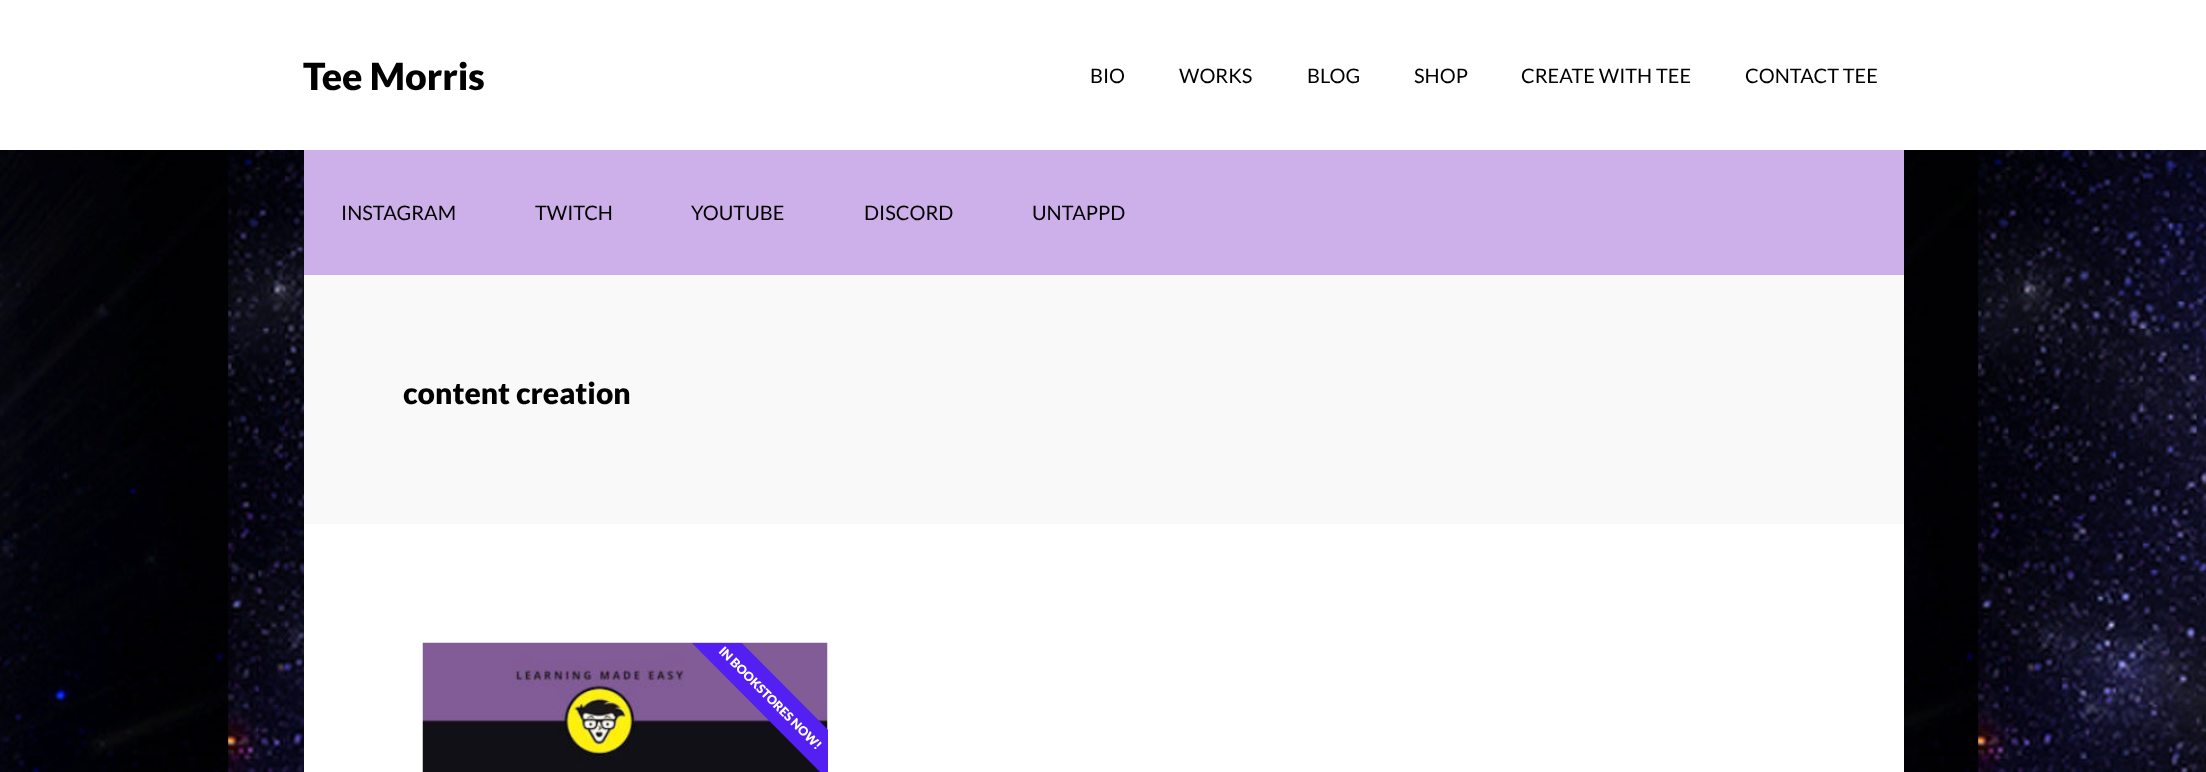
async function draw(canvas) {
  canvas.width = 2206
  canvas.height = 772
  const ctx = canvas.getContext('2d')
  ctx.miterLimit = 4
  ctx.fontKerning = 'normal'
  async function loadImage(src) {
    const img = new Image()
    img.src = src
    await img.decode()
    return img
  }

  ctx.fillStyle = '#fff'
  ctx.fillRect(0, 0, 2206, 772)
  ctx.drawImage(await loadImage('image0.png'), 0, 150, 2206, 622)
  ctx.font = '900 37.5px Lato'
  ctx.fillStyle = '#000'
  ctx.fillText('Tee Morris', 303, 90)
  ctx.font = '20px Lato'
  ctx.fillText('BIO', 1090, 83)
  ctx.fillText('WORKS', 1179, 83)
  ctx.fillText('BLOG', 1307, 83)
  ctx.fillText('SHOP', 1414, 83)
  ctx.fillText('CREATE WITH TEE', 1521, 83)
  ctx.fillText('CONTACT TEE', 1745, 83)
  ctx.fillStyle = '#fff'
  ctx.fillRect(304, 524, 1600, 248)
  ctx.fillStyle = '#cdafea'
  ctx.fillRect(304, 150, 1600, 125)
  ctx.fillStyle = '#000'
  ctx.fillText('INSTAGRAM', 341, 220)
  ctx.fillText('TWITCH', 535, 220)
  ctx.fillText('YOUTUBE', 691, 220)
  ctx.fillText('DISCORD', 864, 220)
  ctx.fillText('UNTAPPD', 1032, 220)
  ctx.fillStyle = '#f9f9f9'
  ctx.fillRect(304, 275, 1600, 249)
  ctx.font = '900 30px Lato'
  ctx.fillStyle = '#000'
  ctx.fillText('content creation', 403, 404)
  ctx.drawImage(await loadImage('image1.png'), 422, 642, 406, 130)
  ctx.save()
  ctx.beginPath()
  ctx.rect(423, 643, 405, 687)
  ctx.clip()
  ctx.fillStyle = '#541ff2'
  ctx.beginPath()
  ctx.moveTo(713, 614)
  ctx.lineTo(854, 756)
  ctx.lineTo(829, 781)
  ctx.lineTo(688, 639)
  ctx.closePath()
  ctx.fill()
  ctx.restore()
  ctx.font = '900 12.5px Lato'
  ctx.fillStyle = '#fff'
  ctx.save()
  ctx.translate(718, 652)
  ctx.rotate(45 * Math.PI / 180)
  ctx.fillText('IN BOOKSTORES NOW!', 0, 0)
  ctx.restore()
}

draw(document.querySelector('canvas'))
